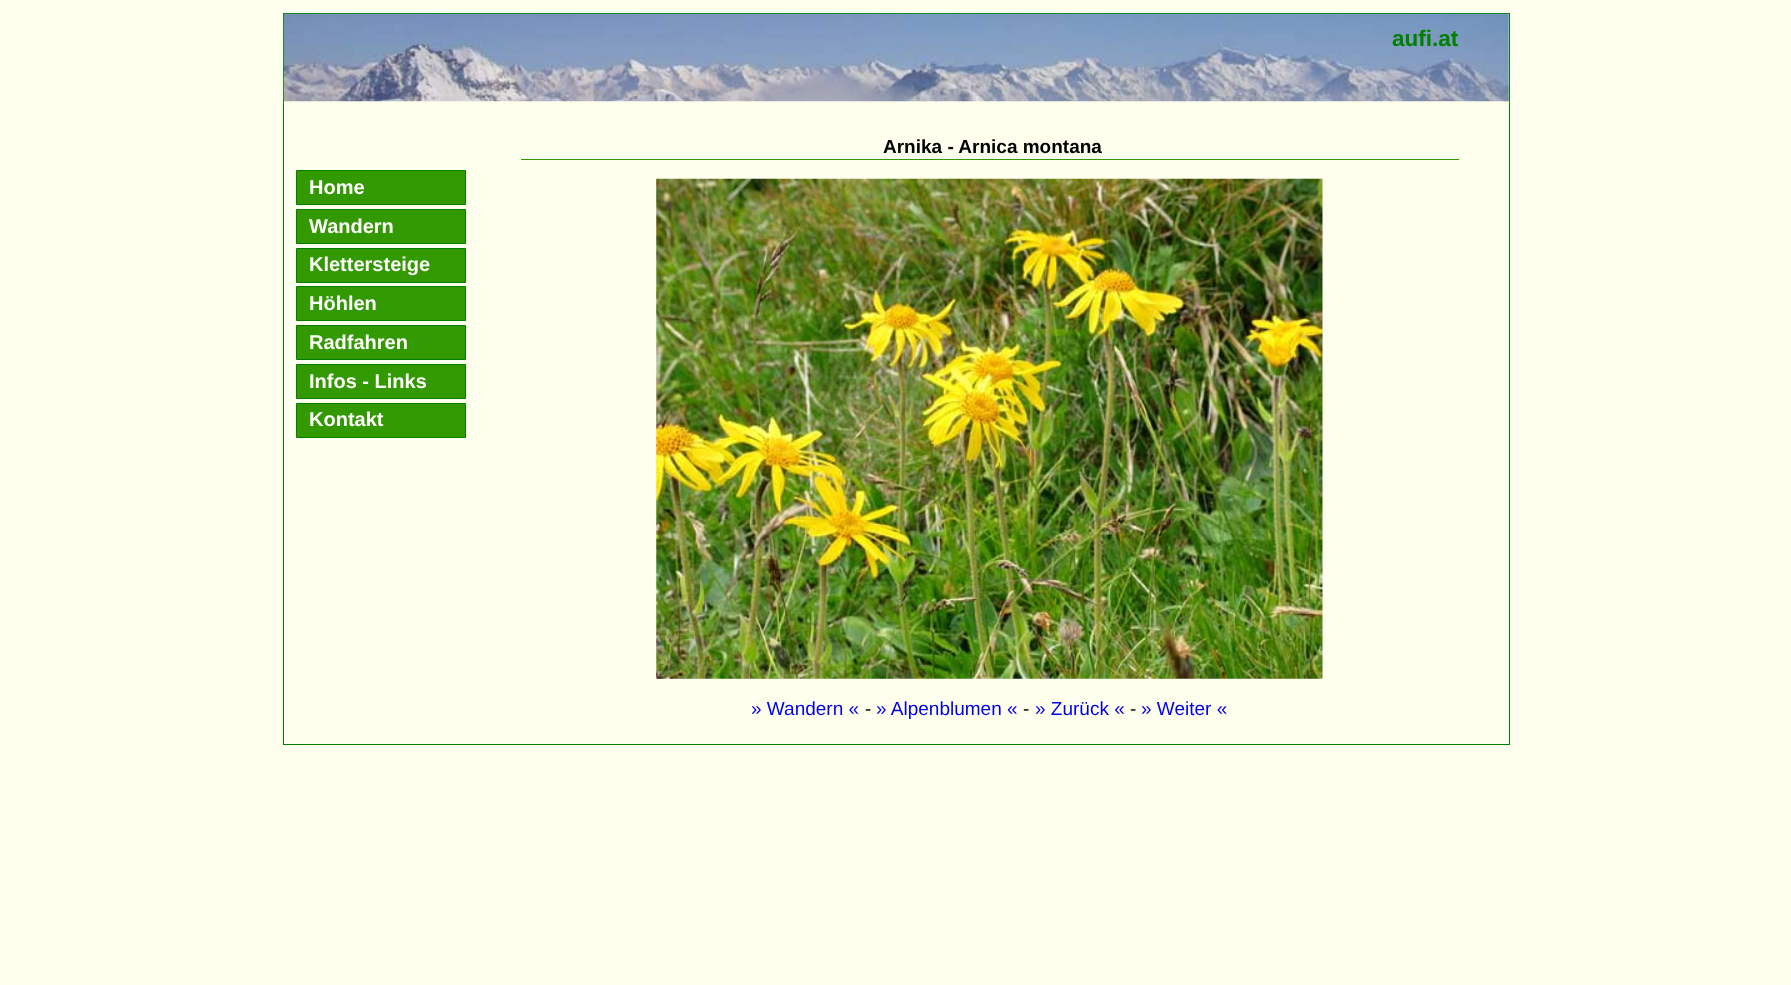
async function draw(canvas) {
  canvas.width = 1791
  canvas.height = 985
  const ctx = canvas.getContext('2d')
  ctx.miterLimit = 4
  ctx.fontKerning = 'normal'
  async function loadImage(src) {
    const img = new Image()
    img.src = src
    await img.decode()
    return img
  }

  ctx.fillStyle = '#ffe'
  ctx.fillRect(0, 0, 1791, 985)
  ctx.strokeStyle = '#008000'
  ctx.strokeRect(283.5, 13.5, 1226, 731)
  ctx.drawImage(await loadImage('image0.png'), 283, 13, 1226, 89)
  ctx.font = 'bold 22.5px Liberation Sans'
  ctx.fillStyle = '#008000'
  ctx.fillText('aufi.at', 1392, 46)
  ctx.fillStyle = '#390'
  ctx.beginPath()
  ctx.rect(296.5, 170.5, 169, 34)
  ctx.fill()
  ctx.stroke()
  ctx.font = 'bold 20px Liberation Sans'
  ctx.fillStyle = '#fff'
  ctx.fillText('Home', 309, 194)
  ctx.fillStyle = '#390'
  ctx.beginPath()
  ctx.rect(296.5, 209.5, 169, 34)
  ctx.fill()
  ctx.stroke()
  ctx.fillStyle = '#fff'
  ctx.fillText('Wandern', 309, 233)
  ctx.fillStyle = '#390'
  ctx.beginPath()
  ctx.rect(296.5, 248.5, 169, 34)
  ctx.fill()
  ctx.stroke()
  ctx.fillStyle = '#fff'
  ctx.fillText('Klettersteige', 309, 271)
  ctx.fillStyle = '#390'
  ctx.beginPath()
  ctx.rect(296.5, 286.5, 169, 34)
  ctx.fill()
  ctx.stroke()
  ctx.fillStyle = '#fff'
  ctx.fillText('Höhlen', 309, 310)
  ctx.fillStyle = '#390'
  ctx.beginPath()
  ctx.rect(296.5, 325.5, 169, 34)
  ctx.fill()
  ctx.stroke()
  ctx.fillStyle = '#fff'
  ctx.fillText('Radfahren', 309, 349)
  ctx.fillStyle = '#390'
  ctx.beginPath()
  ctx.rect(296.5, 364.5, 169, 34)
  ctx.fill()
  ctx.stroke()
  ctx.fillStyle = '#fff'
  ctx.fillText('Infos - Links', 309, 388)
  ctx.fillStyle = '#390'
  ctx.beginPath()
  ctx.rect(296.5, 403.5, 169, 34)
  ctx.fill()
  ctx.stroke()
  ctx.fillStyle = '#fff'
  ctx.fillText('Kontakt', 309, 426)
  ctx.fillStyle = '#390'
  ctx.fillRect(521, 159, 938, 1)
  ctx.font = 'bold 19px Liberation Sans'
  ctx.fillStyle = '#000'
  ctx.fillText('Arnika - Arnica montana', 883, 153)
  ctx.drawImage(await loadImage('image1.png'), 656, 178, 667, 501)
  ctx.font = '19px Liberation Sans'
  ctx.fillStyle = '#00e'
  ctx.fillText('» Wandern «', 751, 715)
  ctx.fillStyle = '#000'
  ctx.fillText('-', 865, 715)
  ctx.fillStyle = '#00e'
  ctx.fillText('» Alpenblumen «', 876, 715)
  ctx.fillStyle = '#000'
  ctx.fillText('-', 1023, 715)
  ctx.fillStyle = '#00e'
  ctx.fillText('» Zurück «', 1035, 715)
  ctx.fillStyle = '#000'
  ctx.fillText('-', 1130, 715)
  ctx.fillStyle = '#00e'
  ctx.fillText('» Weiter «', 1141, 715)
}

draw(document.querySelector('canvas'))
